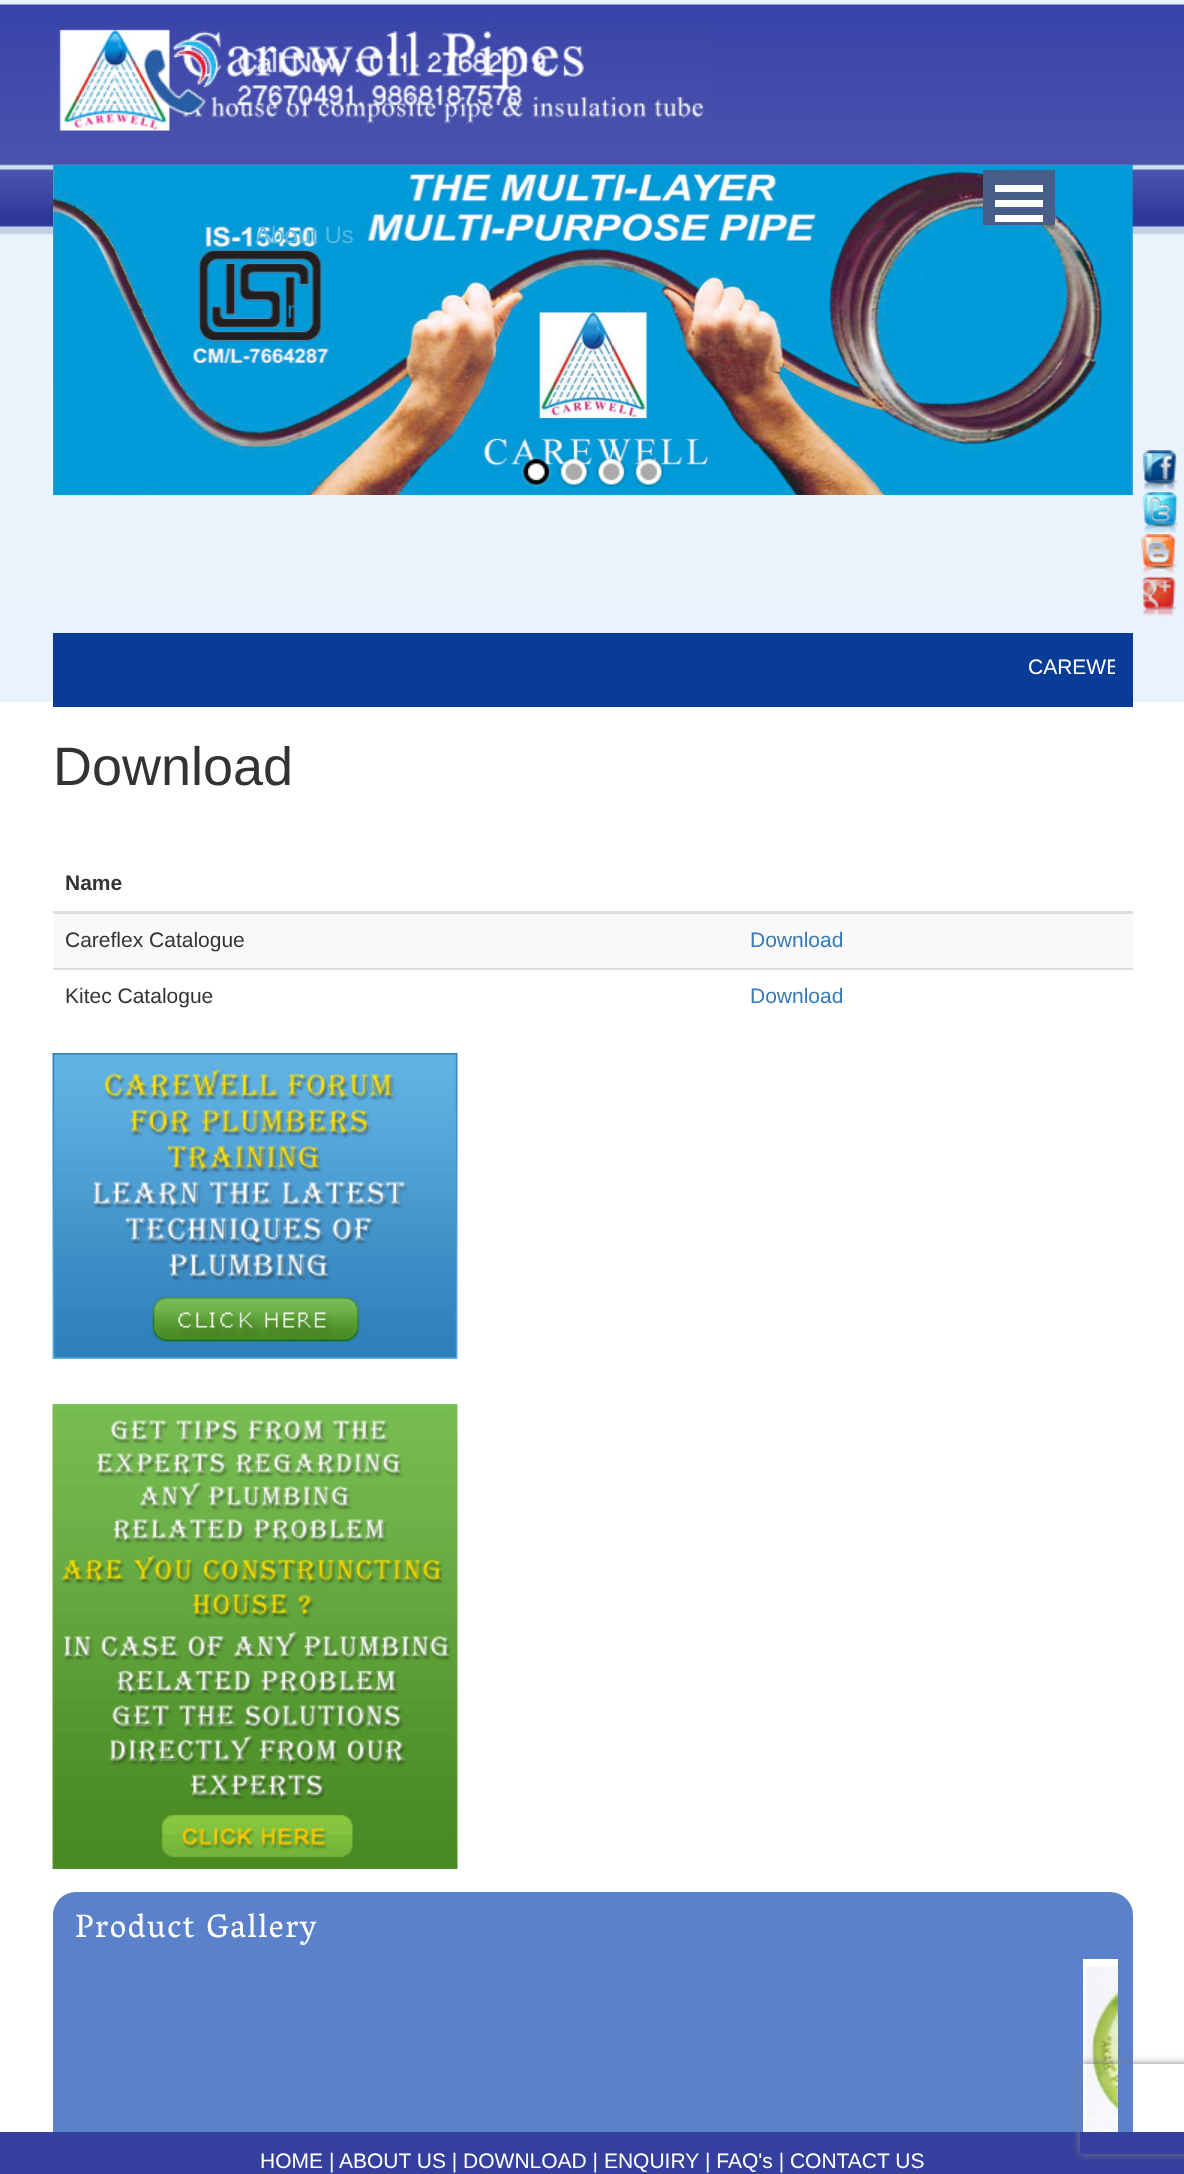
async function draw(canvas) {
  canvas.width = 1184
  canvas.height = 2174
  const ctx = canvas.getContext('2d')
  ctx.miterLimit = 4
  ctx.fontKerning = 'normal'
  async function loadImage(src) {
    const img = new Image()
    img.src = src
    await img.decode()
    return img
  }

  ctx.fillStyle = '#fff'
  ctx.fillRect(0, 0, 1184, 2174)
  ctx.drawImage(await loadImage('image0.png'), 0, 0, 1184, 702)
  ctx.drawImage(await loadImage('image1.png'), 54, 23, 657, 108)
  ctx.drawImage(await loadImage('image2.png'), 143, 38, 410, 78)
  ctx.drawImage(await loadImage('image7.png'), 53, 165, 1080, 330)
  ctx.fillStyle = '#485e88'
  ctx.fillRect(983, 170, 72, 55)
  ctx.fillStyle = '#fff'
  ctx.fillRect(995, 215, 48, 7)
  ctx.fillRect(995, 200, 48, 7)
  ctx.fillRect(995, 185, 48, 7)
  ctx.font = '24px Liberation Sans'
  ctx.fillStyle = '#57b8e2'
  ctx.fillText('About Us', 255, 243)
  ctx.fillStyle = '#0987bb'
  ctx.fillText('r', 287, 318)
  ctx.drawImage(await loadImage('image3.png'), 1142, 450, 37, 41)
  ctx.drawImage(await loadImage('image4.png'), 1142, 492, 37, 41)
  ctx.drawImage(await loadImage('image5.png'), 1141, 534, 37, 41)
  ctx.drawImage(await loadImage('image6.png'), 1141, 576, 37, 41)
  ctx.drawImage(await loadImage('image8.png'), 520, 456, 32, 32)
  ctx.drawImage(await loadImage('image9.png'), 558, 456, 32, 32)
  ctx.drawImage(await loadImage('image10.png'), 595, 456, 32, 32)
  ctx.drawImage(await loadImage('image11.png'), 633, 456, 32, 32)
  ctx.fillStyle = '#093c96'
  ctx.fillRect(53, 633, 1080, 74)
  ctx.save()
  ctx.beginPath()
  ctx.rect(71, 651, 1044, 30)
  ctx.clip()
  ctx.font = '21px Liberation Sans'
  ctx.fillStyle = '#fff'
  ctx.fillText('CAREWE', 1028, 674)
  ctx.restore()
  ctx.font = '54px Liberation Sans'
  ctx.fillStyle = '#333'
  ctx.fillText('Download', 53, 785)
  ctx.font = 'bold 21px Liberation Sans'
  ctx.fillText('Name', 65, 890)
  ctx.fillStyle = '#ddd'
  ctx.fillRect(53, 911, 1080, 3)
  ctx.fillStyle = '#f9f9f9'
  ctx.fillRect(53, 914, 1080, 54)
  ctx.font = '21px Liberation Sans'
  ctx.fillStyle = '#333'
  ctx.fillText('Careflex Catalogue', 65, 947)
  ctx.fillStyle = '#337ab7'
  ctx.fillText('Download', 750, 947)
  ctx.fillStyle = '#333'
  ctx.fillText('Kitec Catalogue', 65, 1003)
  ctx.fillStyle = '#ddd'
  ctx.fillRect(53, 968, 1080, 2)
  ctx.fillStyle = '#337ab7'
  ctx.fillText('Download', 750, 1003)
  ctx.drawImage(await loadImage('image12.png'), 52, 1053, 406, 306)
  ctx.drawImage(await loadImage('image13.png'), 52, 1404, 406, 465)
  ctx.fillStyle = '#5b81cb'
  ctx.beginPath()
  ctx.roundRect(53, 1892, 1080, 240, [23, 23, 0, 0])
  ctx.fill()
  ctx.letterSpacing = '1.5px'
  ctx.font = '33px Vesper Libre'
  ctx.fillStyle = '#fff'
  ctx.fillText('Product Gallery', 75, 1937)
  ctx.drawImage(await loadImage('image14.png'), 1083, 1959, 35, 173)
  ctx.fillStyle = '#353f9e'
  ctx.fillRect(0, 2132, 1184, 42)
  ctx.letterSpacing = '0px'
  ctx.font = '21px Liberation Sans'
  ctx.fillStyle = '#fff'
  ctx.fillText('HOME', 260, 2168)
  ctx.fillText('|', 329, 2168)
  ctx.fillText('ABOUT US | DOWNLOAD | ENQUIRY', 339, 2168)
  ctx.fillText('| FAQ\'s | CONTACT US', 705, 2168)
  ctx.save()
  ctx.beginPath()
  ctx.moveTo(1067, 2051)
  ctx.lineTo(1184, 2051)
  ctx.lineTo(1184, 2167)
  ctx.lineTo(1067, 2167)
  ctx.closePath()
  ctx.moveTo(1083, 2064)
  ctx.lineTo(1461, 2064)
  ctx.bezierCurveTo(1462.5, 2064, 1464, 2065.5, 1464, 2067)
  ctx.lineTo(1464, 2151)
  ctx.bezierCurveTo(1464, 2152.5, 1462.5, 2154, 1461, 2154)
  ctx.lineTo(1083, 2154)
  ctx.bezierCurveTo(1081.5, 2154, 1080, 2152.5, 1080, 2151)
  ctx.lineTo(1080, 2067)
  ctx.bezierCurveTo(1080, 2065.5, 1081.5, 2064, 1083, 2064)
  ctx.closePath()
  ctx.clip('evenodd')
  ctx.fillStyle = '#808080'
  ctx.filter = 'blur(4px)'
  ctx.beginPath()
  ctx.roundRect(1080, 2064, 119, 90, 3)
  ctx.fill()
  ctx.filter = 'none'
  ctx.restore()
}

draw(document.querySelector('canvas'))
